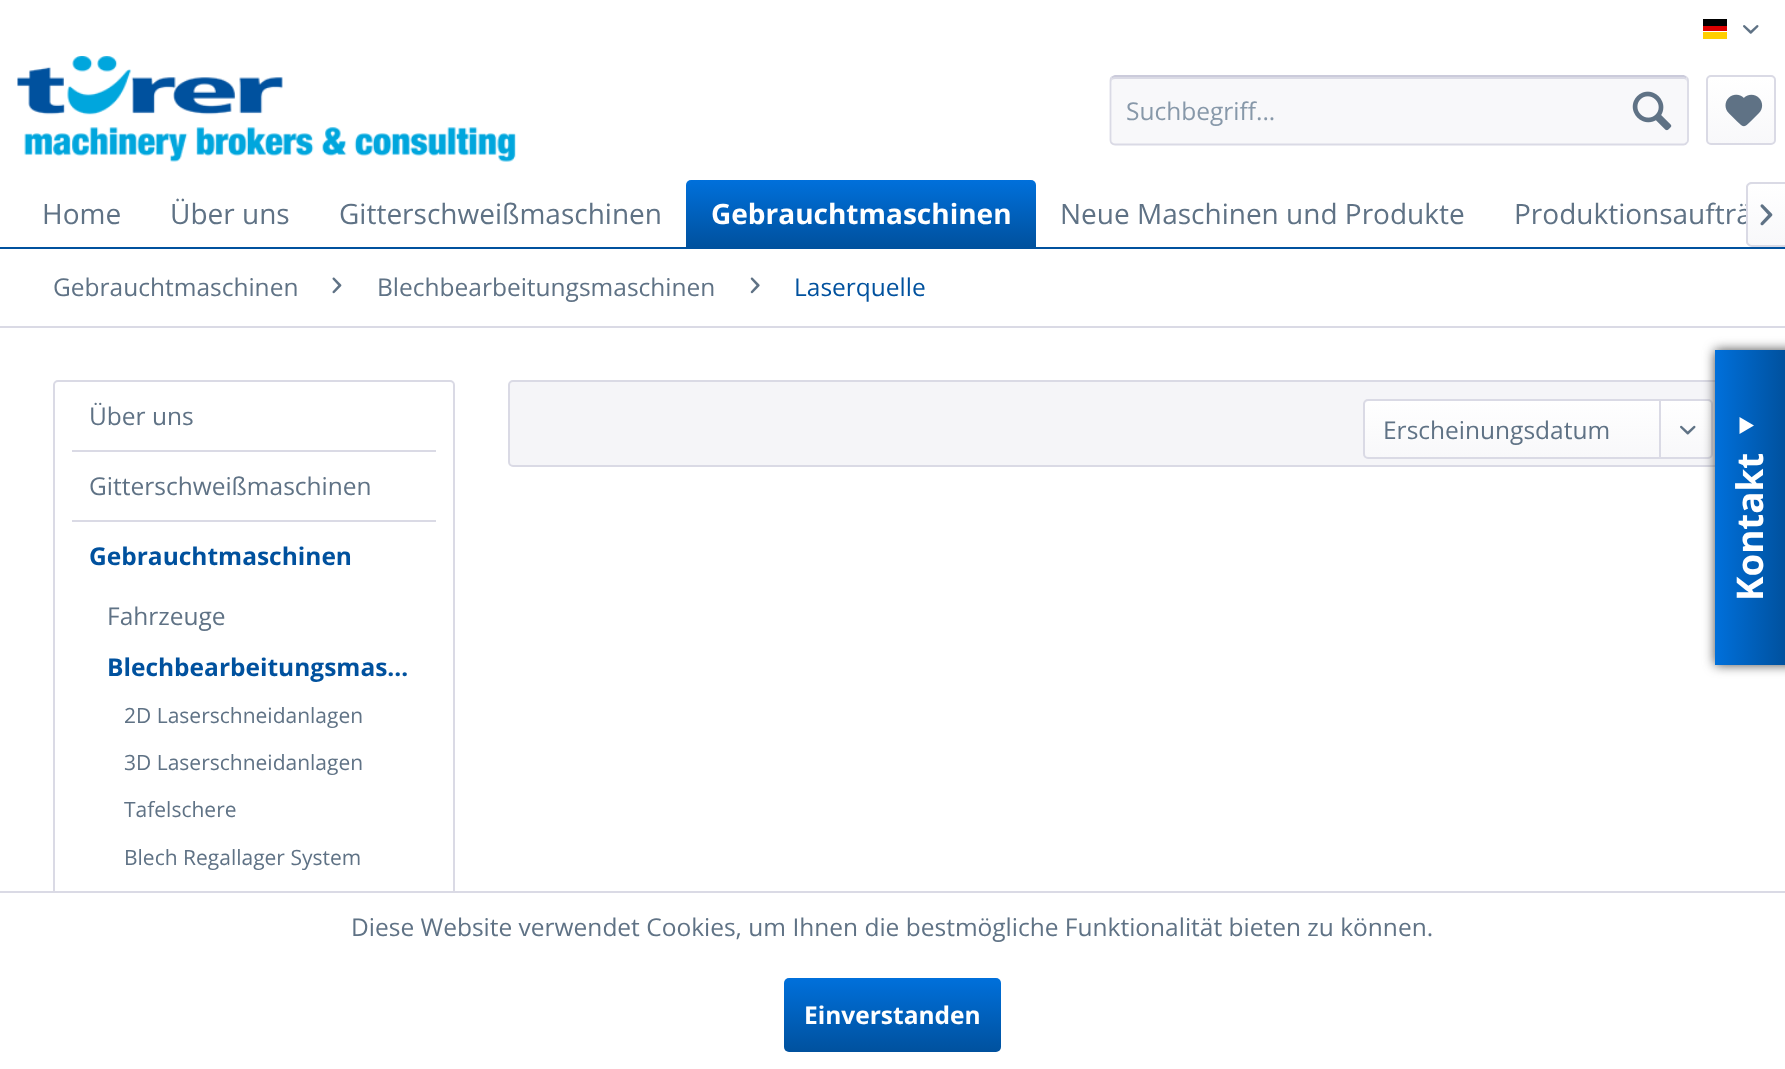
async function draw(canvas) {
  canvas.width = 1785
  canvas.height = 1069
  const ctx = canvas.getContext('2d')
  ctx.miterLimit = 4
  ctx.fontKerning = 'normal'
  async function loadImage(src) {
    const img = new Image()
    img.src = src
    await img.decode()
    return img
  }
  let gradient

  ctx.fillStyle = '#fff'
  ctx.fillRect(0, 0, 1785, 1069)
  ctx.fillStyle = '#000'
  ctx.fillRect(1703, 19, 24, 7)
  ctx.fillStyle = '#d00'
  ctx.fillRect(1703, 26, 24, 5)
  ctx.fillStyle = '#ffce00'
  ctx.fillRect(1703, 32, 24, 7)
  ctx.drawImage(await loadImage('image0.png'), 1743, 25, 16, 9)
  ctx.drawImage(await loadImage('image1.png'), 17, 56, 499, 106)
  ctx.fillStyle = '#f8f8fa'
  ctx.beginPath()
  ctx.roundRect(1110, 75, 579, 70, 5)
  ctx.fill()
  ctx.fillStyle = '#dadae5'
  ctx.beginPath()
  ctx.moveTo(1115, 79)
  ctx.lineTo(1684, 79)
  ctx.bezierCurveTo(1685, 79, 1687, 80, 1687, 82)
  ctx.lineTo(1687, 81)
  ctx.bezierCurveTo(1687, 79, 1685, 77, 1683, 77)
  ctx.lineTo(1115, 77)
  ctx.bezierCurveTo(1113, 77, 1111, 79, 1111, 81)
  ctx.lineTo(1111, 82)
  ctx.bezierCurveTo(1111, 80, 1113, 79, 1115, 79)
  ctx.closePath()
  ctx.fill()
  ctx.beginPath()
  ctx.moveTo(1111.5, 77.5)
  ctx.lineTo(1115, 76)
  ctx.lineTo(1683.5, 76)
  ctx.lineTo(1686.5, 77.5)
  ctx.strokeStyle = '#cbcbdb'
  ctx.lineWidth = 1.8
  ctx.stroke()
  ctx.beginPath()
  ctx.moveTo(1686.5, 77.5)
  ctx.bezierCurveTo(1687.5, 78, 1688, 79.5, 1688, 80.5)
  ctx.lineTo(1688, 140)
  ctx.bezierCurveTo(1688, 141, 1687.5, 142.5, 1686.5, 143)
  ctx.bezierCurveTo(1686, 144, 1684.5, 144.5, 1683.5, 144.5)
  ctx.lineTo(1115, 144.5)
  ctx.bezierCurveTo(1113.5, 144.5, 1112.5, 144, 1111.5, 143)
  ctx.bezierCurveTo(1111, 142.5, 1110.5, 141, 1110.5, 140)
  ctx.lineTo(1110.5, 80.5)
  ctx.bezierCurveTo(1110.5, 79.5, 1111, 78, 1111.5, 77.5)
  ctx.strokeStyle = '#dadae5'
  ctx.stroke()
  ctx.font = '24.5px Open Sans'
  ctx.fillStyle = '#8798a9'
  ctx.fillText('Suchbegriff...', 1126, 120)
  ctx.drawImage(await loadImage('image2.png'), 1632, 91, 40, 40)
  gradient = ctx.createLinearGradient(1741, 77, 1741, 144)
  gradient.addColorStop(0, '#fff')
  gradient.addColorStop(1, '#f8f8fa')
  ctx.fillStyle = gradient
  ctx.beginPath()
  ctx.roundRect(1708, 77, 67, 67, 4)
  ctx.fill()
  ctx.beginPath()
  ctx.roundRect(1707, 76, 68, 68, 4)
  ctx.lineWidth = 2
  ctx.stroke()
  ctx.drawImage(await loadImage('image3.png'), 1725, 94, 38, 33)
  ctx.fillStyle = '#00519e'
  ctx.fillRect(0, 247, 1785, 2)
  ctx.font = '28px Open Sans'
  ctx.fillStyle = '#5f7285'
  ctx.fillText('Home', 42, 224)
  ctx.fillText('Über uns', 170, 224)
  ctx.fillText('Gitterschweißmaschinen', 339, 224)
  gradient = ctx.createLinearGradient(861, 180, 861, 247)
  gradient.addColorStop(0, '#0070db')
  gradient.addColorStop(1, '#00519e')
  ctx.fillStyle = gradient
  ctx.beginPath()
  ctx.roundRect(686, 180, 350, 67, [5, 5, 0, 0])
  ctx.fill()
  ctx.font = 'bold 28px Open Sans'
  ctx.fillStyle = '#fff'
  ctx.fillText('Gebrauchtmaschinen', 711, 224)
  ctx.font = '28px Open Sans'
  ctx.fillStyle = '#5f7285'
  ctx.fillText('Neue Maschinen und Produkte', 1060, 224)
  ctx.fillText('Produktionsaufträ', 1514, 224)
  gradient = ctx.createLinearGradient(1767, 184, 1767, 245)
  gradient.addColorStop(0, '#fff')
  gradient.addColorStop(1, '#f8f8fa')
  ctx.fillStyle = gradient
  ctx.beginPath()
  ctx.roundRect(1748, 184, 37, 61, [4, 0, 0, 4])
  ctx.fill()
  ctx.fillStyle = '#dadae5'
  ctx.beginPath()
  ctx.moveTo(1752, 182)
  ctx.lineTo(1785, 182)
  ctx.lineTo(1785, 247)
  ctx.lineTo(1752, 247)
  ctx.bezierCurveTo(1749, 247, 1746, 244, 1746, 242)
  ctx.lineTo(1746, 187)
  ctx.bezierCurveTo(1746, 184, 1749, 182, 1752, 182)
  ctx.closePath()
  ctx.moveTo(1752, 184)
  ctx.lineTo(1785, 184)
  ctx.lineTo(1785, 245)
  ctx.lineTo(1752, 245)
  ctx.bezierCurveTo(1750, 245, 1748, 243, 1748, 242)
  ctx.lineTo(1748, 187)
  ctx.bezierCurveTo(1748, 185, 1750, 184, 1752, 184)
  ctx.closePath()
  ctx.fill('evenodd')
  ctx.drawImage(await loadImage('image4.png'), 1760, 204, 13, 22)
  ctx.fillRect(0, 326, 1785, 2)
  ctx.font = '24.5px Open Sans'
  ctx.fillStyle = '#5f7285'
  ctx.fillText('Gebrauchtmaschinen', 53, 296)
  ctx.drawImage(await loadImage('image5.png'), 332, 277, 10, 17)
  ctx.fillText('Blechbearbeitungsmaschinen', 377, 296)
  ctx.drawImage(await loadImage('image6.png'), 750, 277, 10, 17)
  ctx.fillStyle = '#00519e'
  ctx.fillText('Laserquelle', 794, 296)
  ctx.beginPath()
  ctx.roundRect(54, 381, 400, 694, 4)
  ctx.stroke()
  ctx.fillStyle = '#dadae5'
  ctx.fillRect(72, 450, 364, 2)
  ctx.fillStyle = '#5f7285'
  ctx.fillText('Über uns', 89, 425)
  ctx.fillStyle = '#dadae5'
  ctx.fillRect(72, 520, 364, 2)
  ctx.fillStyle = '#5f7285'
  ctx.fillText('Gitterschweißmaschinen', 89, 495)
  ctx.font = 'bold 24.5px Open Sans'
  ctx.fillStyle = '#00519e'
  ctx.fillText('Gebrauchtmaschinen', 89, 565)
  ctx.font = '24.5px Open Sans'
  ctx.fillStyle = '#5f7285'
  ctx.fillText('Fahrzeuge', 107, 625)
  ctx.font = 'bold 24.5px Open Sans'
  ctx.fillStyle = '#00519e'
  ctx.fillText('Blechbearbeitungsmas…', 107, 676)
  ctx.font = '21px Open Sans'
  ctx.fillStyle = '#5f7285'
  ctx.fillText('2D Laserschneidanlagen', 124, 723)
  ctx.fillText('3D Laserschneidanlagen', 124, 770)
  ctx.fillText('Tafelschere', 124, 817)
  ctx.fillText('Blech Regallager System', 124, 865)
  ctx.fillStyle = '#f5f5f8'
  ctx.beginPath()
  ctx.roundRect(509, 381, 1223, 85, 4)
  ctx.fill()
  ctx.stroke()
  gradient = ctx.createLinearGradient(1538, 401, 1538, 457)
  gradient.addColorStop(0, '#fff')
  gradient.addColorStop(1, '#f8f8fa')
  ctx.fillStyle = gradient
  ctx.beginPath()
  ctx.roundRect(1365, 401, 347, 56, 4)
  ctx.fill()
  ctx.beginPath()
  ctx.roundRect(1364, 400, 348, 58, 4)
  ctx.stroke()
  ctx.font = '24.5px Open Sans'
  ctx.fillStyle = '#5f7285'
  ctx.fillText('Erscheinungsdatum', 1383, 439)
  ctx.fillStyle = '#dadae5'
  ctx.fillRect(1659, 401, 2, 58)
  ctx.drawImage(await loadImage('image7.png'), 1680, 425, 16, 10)
  ctx.fillStyle = '#4a4a4a'
  ctx.filter = 'blur(6px)'
  ctx.beginPath()
  ctx.rect(1715, 350, 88, 315)
  ctx.fill()
  ctx.filter = 'none'
  gradient = ctx.createLinearGradient(1715, 508, 1785, 508)
  gradient.addColorStop(0, '#0070db')
  gradient.addColorStop(1, '#00519e')
  ctx.fillStyle = gradient
  ctx.fillRect(1715, 350, 70, 315)
  ctx.fillStyle = '#fff'
  ctx.beginPath()
  ctx.moveTo(1739.5, 417)
  ctx.lineTo(1739.5, 434)
  ctx.lineTo(1754, 425.5)
  ctx.closePath()
  ctx.fill()
  ctx.font = 'bold 36.75px Open Sans'
  ctx.save()
  ctx.translate(1763, 601)
  ctx.rotate(-90 * Math.PI / 180)
  ctx.fillText('Kontakt', 0, 0)
  ctx.restore()
  ctx.fillRect(53, 893, 402, 176)
  ctx.fillStyle = '#dadae5'
  ctx.fillRect(0, 891, 1785, 2)
  ctx.font = '24.5px Open Sans'
  ctx.fillStyle = '#5f7285'
  ctx.fillText('Diese Website verwendet Cookies, um Ihnen die bestmögliche Funktionalität bieten zu können.', 351, 936)
  gradient = ctx.createLinearGradient(893, 978, 893, 1052)
  gradient.addColorStop(0, '#0070db')
  gradient.addColorStop(1, '#00519e')
  ctx.fillStyle = gradient
  ctx.beginPath()
  ctx.roundRect(784, 978, 217, 74, 5)
  ctx.fill()
  ctx.font = 'bold 24.5px Open Sans'
  ctx.fillStyle = '#fff'
  ctx.fillText('Einverstanden', 804, 1024)
}

draw(document.querySelector('canvas'))
